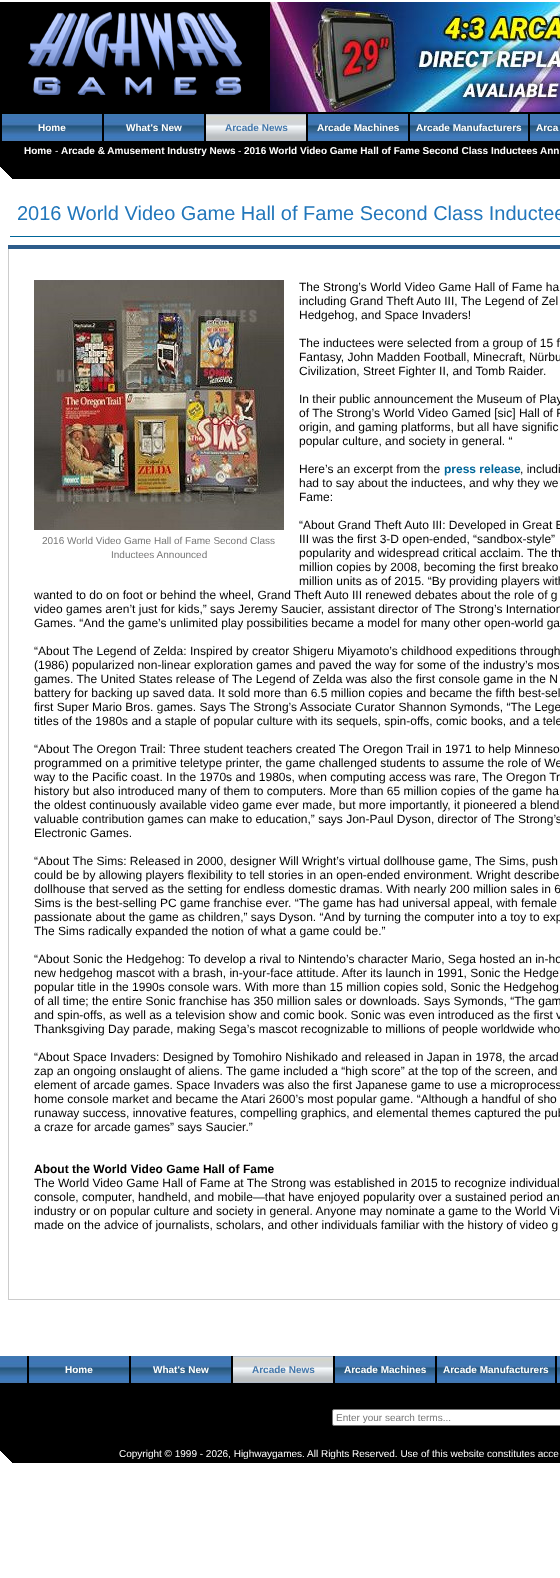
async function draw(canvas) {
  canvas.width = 560
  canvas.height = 1578
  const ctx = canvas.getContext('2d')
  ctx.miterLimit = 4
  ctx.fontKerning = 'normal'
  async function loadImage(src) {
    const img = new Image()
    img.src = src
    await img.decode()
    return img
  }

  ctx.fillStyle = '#fff'
  ctx.fillRect(0, 0, 560, 1578)
  ctx.fillStyle = '#000'
  ctx.fillRect(0, 2, 560, 177)
  ctx.drawImage(await loadImage('image0.png'), 0, 167, 12, 12)
  ctx.drawImage(await loadImage('image1.png'), 28, 12, 214, 83)
  ctx.drawImage(await loadImage('image2.png'), 270, 2, 290, 110)
  ctx.drawImage(await loadImage('image3.png'), 2, 114, 558, 27)
  ctx.fillRect(102, 114, 2, 27)
  ctx.font = 'bold 10px Liberation Sans'
  ctx.fillStyle = '#fff'
  ctx.fillText('Home', 38, 131)
  ctx.fillStyle = '#000'
  ctx.fillRect(204, 114, 2, 27)
  ctx.fillStyle = '#fff'
  ctx.fillText('What\'s New', 126, 131)
  ctx.fillStyle = '#000'
  ctx.fillRect(306, 114, 2, 27)
  ctx.drawImage(await loadImage('image4.png'), 206, 114, 100, 27)
  ctx.fillStyle = '#47a'
  ctx.fillText('Arcade News', 225, 131)
  ctx.fillStyle = '#000'
  ctx.fillRect(408, 114, 2, 27)
  ctx.fillStyle = '#fff'
  ctx.fillText('Arcade Machines', 317, 131)
  ctx.fillStyle = '#000'
  ctx.fillRect(528, 114, 2, 27)
  ctx.fillStyle = '#fff'
  ctx.fillText('Arcade Manufacturers', 416, 131)
  ctx.fillText('Arca', 536, 131)
  ctx.fillText('Home', 24, 154)
  ctx.font = '10px Liberation Sans'
  ctx.fillText('-', 55, 154)
  ctx.font = 'bold 10px Liberation Sans'
  ctx.fillText('Arcade & Amusement Industry News', 61, 154)
  ctx.font = '10px Liberation Sans'
  ctx.fillText('-', 238, 154)
  ctx.font = 'bold 10px Liberation Sans'
  ctx.fillText('2016 World Video Game Hall of Fame Second Class Inductees Ann', 244, 154)
  ctx.fillStyle = '#069'
  ctx.fillRect(10, 236, 550, 1)
  ctx.font = '20px Liberation Sans'
  ctx.fillStyle = '#27b'
  ctx.fillText('2016 World Video Game Hall of Fame Second Class Inductee', 17, 220)
  ctx.fillStyle = '#ccc'
  ctx.fillRect(8, 1299, 552, 1)
  ctx.fillRect(8, 245, 1, 1055)
  ctx.fillStyle = '#2d5c8a'
  ctx.fillRect(8, 245, 552, 4)
  ctx.font = '12px Liberation Sans'
  ctx.fillStyle = '#000'
  ctx.fillText('The Strong’s World Video Game Hall of Fame ha', 299, 291)
  ctx.fillText('including Grand Theft Auto III, The Legend of Zel', 299, 305)
  ctx.fillText('Hedgehog, and Space Invaders!', 299, 319)
  ctx.fillText('The inductees were selected from a group of 15 f', 299, 347)
  ctx.fillText('Fantasy, John Madden Football, Minecraft, Nürbu', 299, 361)
  ctx.fillText('Civilization, Street Fighter II, and Tomb Raider.', 299, 375)
  ctx.fillText('In their public announcement the Museum of Play', 299, 403)
  ctx.fillText('of The Strong’s World Video Gamed [sic] Hall of F', 299, 417)
  ctx.fillText('origin, and gaming platforms, but all have signific', 299, 431)
  ctx.fillText('popular culture, and society in general. “', 299, 445)
  ctx.fillText('Here’s an excerpt from the', 299, 473)
  ctx.font = 'bold 12px Liberation Sans'
  ctx.fillStyle = '#069'
  ctx.fillText('press release', 444, 473)
  ctx.font = '12px Liberation Sans'
  ctx.fillStyle = '#000'
  ctx.fillText(', includi', 520, 473)
  ctx.fillText('had to say about the inductees, and why they we', 299, 487)
  ctx.fillText('Fame:', 299, 501)
  ctx.fillText('“About Grand Theft Auto III: Developed in Great B', 299, 529)
  ctx.fillText('III was the first 3-D open-ended, “sandbox-style”', 299, 543)
  ctx.fillText('popularity and widespread critical acclaim. The th', 299, 557)
  ctx.fillText('million copies by 2008, becoming the first breako', 299, 571)
  ctx.fillText('million units as of 2015. “By providing players with', 299, 585)
  ctx.fillText('wanted to do on foot or behind the wheel, Grand Theft Auto III renewed debates about the role of g', 34, 599)
  ctx.fillText('video games aren’t just for kids,” says Jeremy Saucier, assistant director of The Strong’s Internation', 34, 613)
  ctx.fillText('Games. “And the game’s unlimited play possibilities became a model for many other open-world ga', 34, 627)
  ctx.fillText('“About The Legend of Zelda: Inspired by creator Shigeru Miyamoto’s childhood expeditions through', 34, 655)
  ctx.fillText('(1986) popularized non-linear exploration games and paved the way for some of the industry’s mos', 34, 669)
  ctx.fillText('games. The United States release of The Legend of Zelda was also the first console game in the N', 34, 683)
  ctx.fillText('battery for backing up saved data. It sold more than 6.5 million copies and became the fifth best-sel', 34, 697)
  ctx.fillText('first Super Mario Bros. games. Says The Strong’s Associate Curator Shannon Symonds, “The Lege', 34, 711)
  ctx.fillText('titles of the 1980s and a staple of popular culture with its sequels, spin-offs, comic books, and a tele', 34, 725)
  ctx.fillText('“About The Oregon Trail: Three student teachers created The Oregon Trail in 1971 to help Minneso', 34, 753)
  ctx.fillText('programmed on a primitive teletype printer, the game challenged students to assume the role of We', 34, 767)
  ctx.fillText('way to the Pacific coast. In the 1970s and 1980s, when computing access was rare, The Oregon Tr', 34, 781)
  ctx.fillText('history but also introduced many of them to computers. More than 65 million copies of the game ha', 34, 795)
  ctx.fillText('the oldest continuously available video game ever made, but more importantly, it pioneered a blend', 34, 809)
  ctx.fillText('valuable contribution games can make to education,” says Jon-Paul Dyson, director of The Strong’s', 34, 823)
  ctx.fillText('Electronic Games.', 34, 837)
  ctx.fillText('“About The Sims: Released in 2000, designer Will Wright’s virtual dollhouse game, The Sims, push', 34, 865)
  ctx.fillText('could be by allowing players flexibility to tell stories in an open-ended environment. Wright describe', 34, 879)
  ctx.fillText('dollhouse that served as the setting for endless domestic dramas. With nearly 200 million sales in 6', 34, 893)
  ctx.fillText('Sims is the best-selling PC game franchise ever. “The game has had universal appeal, with female', 34, 907)
  ctx.fillText('passionate about the game as children,” says Dyson. “And by turning the computer into a toy to exp', 34, 921)
  ctx.fillText('The Sims radically expanded the notion of what a game could be.”', 34, 935)
  ctx.fillText('“About Sonic the Hedgehog: To develop a rival to Nintendo’s character Mario, Sega hosted an in-ho', 34, 963)
  ctx.fillText('new hedgehog mascot with a brash, in-your-face attitude. After its launch in 1991, Sonic the Hedge', 34, 977)
  ctx.fillText('popular title in the 1990s console wars. With more than 15 million copies sold, Sonic the Hedgehog', 34, 991)
  ctx.fillText('of all time; the entire Sonic franchise has 350 million sales or downloads. Says Symonds, “The gam', 34, 1005)
  ctx.fillText('and spin-offs, as well as a television show and comic book. Sonic was even introduced as the first v', 34, 1019)
  ctx.fillText('Thanksgiving Day parade, making Sega’s mascot recognizable to millions of people worldwide who', 34, 1033)
  ctx.fillText('“About Space Invaders: Designed by Tomohiro Nishikado and released in Japan in 1978, the arcad', 34, 1061)
  ctx.fillText('zap an ongoing onslaught of aliens. The game included a “high score” at the top of the screen, and', 34, 1075)
  ctx.fillText('element of arcade games. Space Invaders was also the first Japanese game to use a microprocess', 34, 1089)
  ctx.fillText('home console market and became the Atari 2600’s most popular game. “Although a handful of sho', 34, 1103)
  ctx.fillText('runaway success, innovative features, compelling graphics, and elemental themes captured the pub', 34, 1117)
  ctx.fillText('a craze for arcade games” says Saucier.”', 34, 1131)
  ctx.font = 'bold 12px Liberation Sans'
  ctx.fillText('About the World Video Game Hall of Fame', 34, 1173)
  ctx.font = '12px Liberation Sans'
  ctx.fillText('The World Video Game Hall of Fame at The Strong was established in 2015 to recognize individual', 34, 1187)
  ctx.fillText('console, computer, handheld, and mobile—that have enjoyed popularity over a sustained period an', 34, 1201)
  ctx.fillText('industry or on popular culture and society in general. Anyone may nominate a game to the World Vi', 34, 1215)
  ctx.fillText('made on the advice of journalists, scholars, and other individuals familiar with the history of video g', 34, 1229)
  ctx.drawImage(await loadImage('image5.png'), 34, 280, 250, 250)
  ctx.font = '10px Liberation Sans'
  ctx.fillStyle = '#777'
  ctx.fillText('2016 World Video Game Hall of Fame Second Class', 42, 544)
  ctx.fillText('Inductees Announced', 111, 558)
  ctx.fillStyle = '#000'
  ctx.fillRect(0, 1383, 560, 80)
  ctx.drawImage(await loadImage('image0.png'), 0, 1451, 12, 12)
  ctx.drawImage(await loadImage('image6.png'), 0, 1356, 560, 27)
  ctx.fillRect(129, 1356, 2, 27)
  ctx.fillRect(27, 1356, 2, 27)
  ctx.font = 'bold 10px Liberation Sans'
  ctx.fillStyle = '#fff'
  ctx.fillText('Home', 65, 1373)
  ctx.fillStyle = '#000'
  ctx.fillRect(231, 1356, 2, 27)
  ctx.fillStyle = '#fff'
  ctx.fillText('What\'s New', 153, 1373)
  ctx.fillStyle = '#000'
  ctx.fillRect(333, 1356, 2, 27)
  ctx.drawImage(await loadImage('image4.png'), 233, 1356, 100, 27)
  ctx.fillStyle = '#47a'
  ctx.fillText('Arcade News', 252, 1373)
  ctx.fillStyle = '#000'
  ctx.fillRect(435, 1356, 2, 27)
  ctx.fillStyle = '#fff'
  ctx.fillText('Arcade Machines', 344, 1373)
  ctx.fillStyle = '#000'
  ctx.fillRect(555, 1356, 2, 27)
  ctx.fillStyle = '#fff'
  ctx.fillText('Arcade Manufacturers', 443, 1373)
  ctx.beginPath()
  ctx.roundRect(332.5, 1409.5, 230, 16, 1.5)
  ctx.fill()
  ctx.strokeStyle = '#767676'
  ctx.stroke()
  ctx.font = '10px Liberation Sans'
  ctx.fillStyle = '#777'
  ctx.fillText('Enter your search terms...', 336, 1421)
  ctx.fillStyle = '#fff'
  ctx.fillText('Copyright © 1999 - 2026, Highwaygames. All Rights Reserved. Use of this website constitutes acce', 119, 1457)
}

draw(document.querySelector('canvas'))
